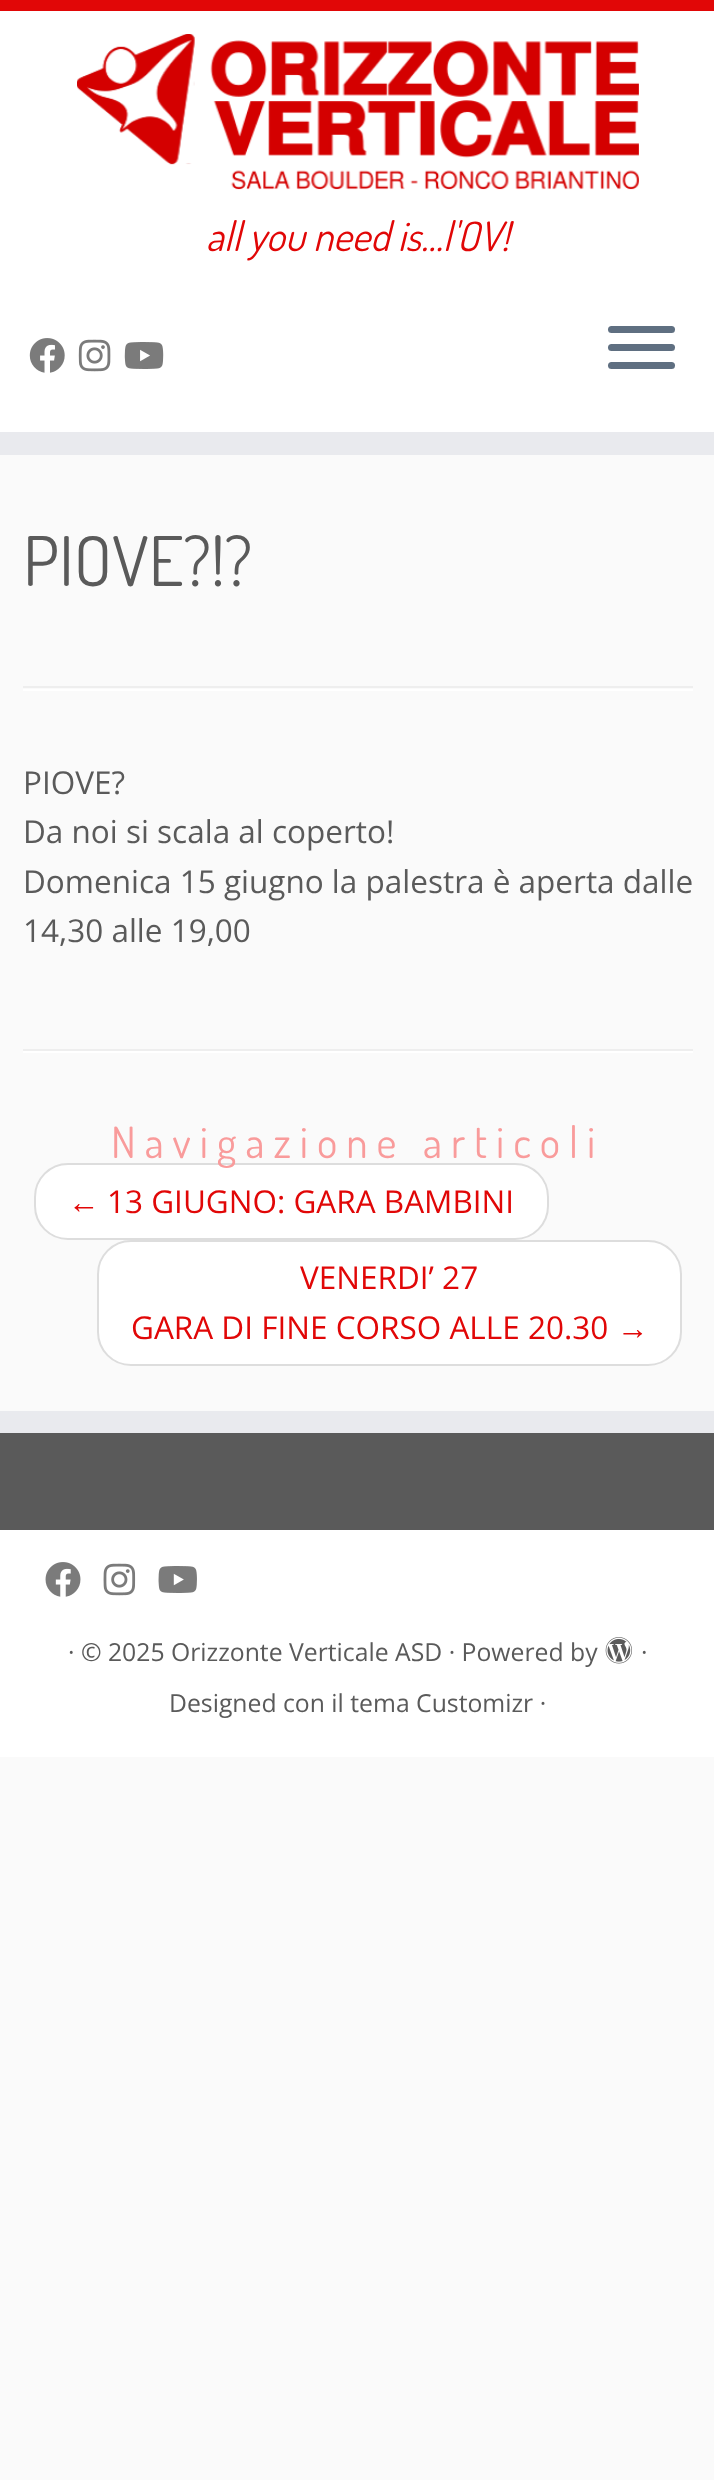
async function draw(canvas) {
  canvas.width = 714
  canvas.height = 2480
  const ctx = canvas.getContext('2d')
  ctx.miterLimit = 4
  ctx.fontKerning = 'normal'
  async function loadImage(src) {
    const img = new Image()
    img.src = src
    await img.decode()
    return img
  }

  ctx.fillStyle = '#fafafa'
  ctx.fillRect(0, 0, 714, 2480)
  ctx.fillStyle = '#fff'
  ctx.fillRect(0, 11, 714, 421)
  ctx.fillStyle = '#e10707'
  ctx.fillRect(0, 0, 714, 11)
  ctx.fillStyle = '#e9eaee'
  ctx.fillRect(0, 432, 714, 23)
  ctx.drawImage(await loadImage('image0.png'), 77, 34, 562, 156)
  ctx.font = 'italic 40.5px Dosis'
  ctx.fillStyle = '#e10707'
  ctx.fillText('all you need is…l\'OV!', 206, 251)
  ctx.drawImage(await loadImage('image1.png'), 29, 338, 36, 35)
  ctx.drawImage(await loadImage('image2.png'), 78, 339, 33, 33)
  ctx.drawImage(await loadImage('image3.png'), 124, 342, 40, 27)
  ctx.fillStyle = '#5f6f81'
  ctx.beginPath()
  ctx.roundRect(608, 326, 67, 7, 3.5)
  ctx.fill()
  ctx.beginPath()
  ctx.roundRect(608, 344, 67, 7, 3.5)
  ctx.fill()
  ctx.beginPath()
  ctx.roundRect(608, 362, 67, 7, 3.5)
  ctx.fill()
  ctx.font = '68.5px Dosis'
  ctx.fillStyle = '#5a5a5a'
  ctx.fillText('PIOVE?!?', 23, 586)
  ctx.fillStyle = '#eee'
  ctx.fillRect(23, 686, 670, 2)
  ctx.fillStyle = '#fff'
  ctx.fillRect(23, 689, 670, 2)
  ctx.font = '31.5px Open Sans'
  ctx.fillStyle = '#5a5a5a'
  ctx.fillText('PIOVE?', 23, 794)
  ctx.fillText('Da noi si scala al coperto!', 23, 843)
  ctx.fillText('Domenica 15 giugno la palestra è aperta dalle', 23, 893)
  ctx.fillText('14,30 alle 19,00', 23, 942)
  ctx.fillStyle = '#eee'
  ctx.fillRect(23, 1049, 670, 2)
  ctx.fillStyle = '#fff'
  ctx.fillRect(23, 1051, 670, 2)
  ctx.beginPath()
  ctx.roundRect(35, 1164, 513, 75, 33)
  ctx.fill()
  ctx.strokeStyle = '#ddd'
  ctx.lineWidth = 2
  ctx.stroke()
  ctx.letterSpacing = '9px'
  ctx.font = '43.25px Dosis'
  ctx.fillStyle = '#f99b9b'
  ctx.fillText('Navigazione articoli', 111, 1158)
  ctx.letterSpacing = '0px'
  ctx.font = '31.5px Liberation Serif'
  ctx.fillStyle = '#e10707'
  ctx.fillText('←', 68, 1213)
  ctx.font = '31.5px Open Sans'
  ctx.fillText('13 GIUGNO: GARA BAMBINI', 107, 1213)
  ctx.fillStyle = '#fff'
  ctx.beginPath()
  ctx.roundRect(98, 1241, 583, 124, 33)
  ctx.fill()
  ctx.stroke()
  ctx.fillStyle = '#e10707'
  ctx.fillText('VENERDI’ 27', 300, 1289)
  ctx.fillText('GARA DI FINE CORSO ALLE 20.30', 131, 1339)
  ctx.font = '31.5px Liberation Serif'
  ctx.fillText('→', 617, 1339)
  ctx.fillStyle = '#5a5a5a'
  ctx.fillRect(0, 1433, 714, 97)
  ctx.fillStyle = '#e9eaee'
  ctx.fillRect(0, 1411, 714, 22)
  ctx.fillStyle = '#fff'
  ctx.fillRect(0, 1530, 714, 227)
  ctx.drawImage(await loadImage('image4.png'), 45, 1562, 36, 35)
  ctx.drawImage(await loadImage('image5.png'), 103, 1563, 33, 33)
  ctx.drawImage(await loadImage('image6.png'), 158, 1566, 39, 27)
  ctx.font = '24.75px Open Sans'
  ctx.fillStyle = '#5a5a5a'
  ctx.fillText('· © 2025 Orizzonte Verticale ASD · Powered by', 68, 1661)
  ctx.drawImage(await loadImage('image7.png'), 605, 1637, 27, 27)
  ctx.fillText('·', 641, 1661)
  ctx.fillText('Designed con il tema Customizr ·', 169, 1712)
}

draw(document.querySelector('canvas'))
